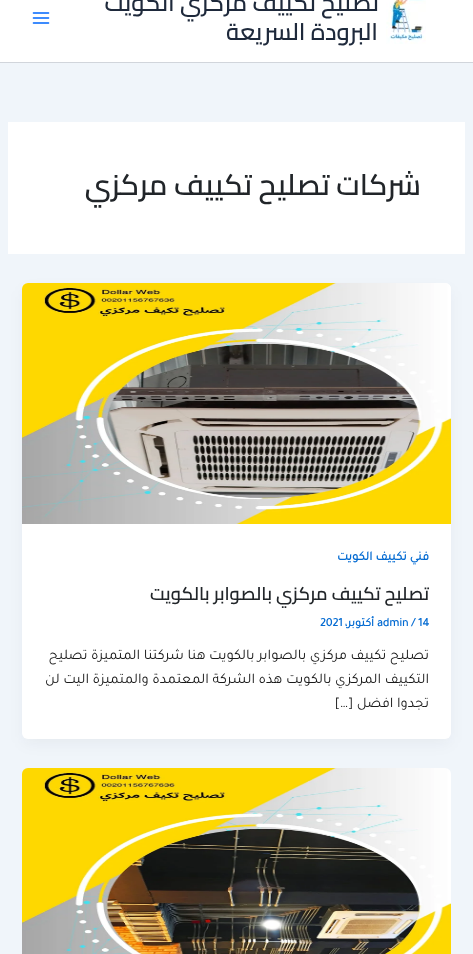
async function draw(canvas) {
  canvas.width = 473
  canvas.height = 954
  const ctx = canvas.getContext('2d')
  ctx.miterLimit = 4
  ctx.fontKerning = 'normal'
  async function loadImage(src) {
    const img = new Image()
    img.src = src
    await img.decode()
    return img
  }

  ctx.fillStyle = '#f0f5fa'
  ctx.fillRect(0, 0, 473, 954)
  ctx.fillStyle = '#fff'
  ctx.fillRect(0, 0, 473, 62)
  ctx.fillStyle = '#d1d5db'
  ctx.fillRect(0, 62, 473, 1)
  ctx.drawImage(await loadImage('image0.png'), 386, 0, 40, 44)
  ctx.direction = 'rtl'
  ctx.font = '600 23.75px Cairo'
  ctx.fillStyle = '#1e293b'
  ctx.fillText('تصليح تكييف مركزي الكويت', 379, 11)
  ctx.fillText('البرودة السريعة', 378, 40)
  ctx.drawImage(await loadImage('image1.png'), 32, 12, 18, 12)
  ctx.fillStyle = '#fff'
  ctx.fillRect(8, 122, 457, 132)
  ctx.font = '600 29.25px Cairo'
  ctx.fillStyle = '#212529'
  ctx.fillText('شركات تصليح تكييف مركزي', 421, 195)
  ctx.fillStyle = '#1018280d'
  ctx.filter = 'blur(7.5px)'
  ctx.beginPath()
  ctx.roundRect(24, 291, 425, 452, 4)
  ctx.fill()
  ctx.filter = 'none'
  ctx.fillStyle = '#fff'
  ctx.beginPath()
  ctx.roundRect(22, 283, 429, 456, 6)
  ctx.fill()
  ctx.drawImage(await loadImage('image2.png'), 22, 283, 429, 241)
  ctx.font = 'bold 12.75px Tajawal'
  ctx.fillStyle = '#046bd2'
  ctx.fillText('فني تكييف الكويت', 429, 560)
  ctx.font = '600 18.25px Cairo'
  ctx.fillStyle = '#212529'
  ctx.fillText('تصليح تكييف مركزي بالصوابر بالكويت', 429, 600)
  ctx.direction = 'ltr'
  ctx.font = 'bold 12px Tajawal'
  ctx.fillStyle = '#046bd2'
  ctx.fillText('admin / 14', 377, 626)
  ctx.direction = 'rtl'
  ctx.fillText('أكتوبر،', 374, 626)
  ctx.direction = 'ltr'
  ctx.fillText('2021', 320, 626)
  ctx.direction = 'rtl'
  ctx.font = '14.6px Tajawal'
  ctx.fillStyle = '#1a1a1a'
  ctx.fillText('تصليح تكييف مركزي بالصوابر بالكويت هنا شركتنا المتميزة تصليح', 429, 659)
  ctx.fillText('التكييف المركزي بالكويت هذه الشركة المعتمدة والمتميزة اليت لن', 429, 683)
  ctx.fillText('تجدوا افضل […]', 429, 707)
  ctx.drawImage(await loadImage('image3.png'), 22, 768, 429, 186)
}

draw(document.querySelector('canvas'))
